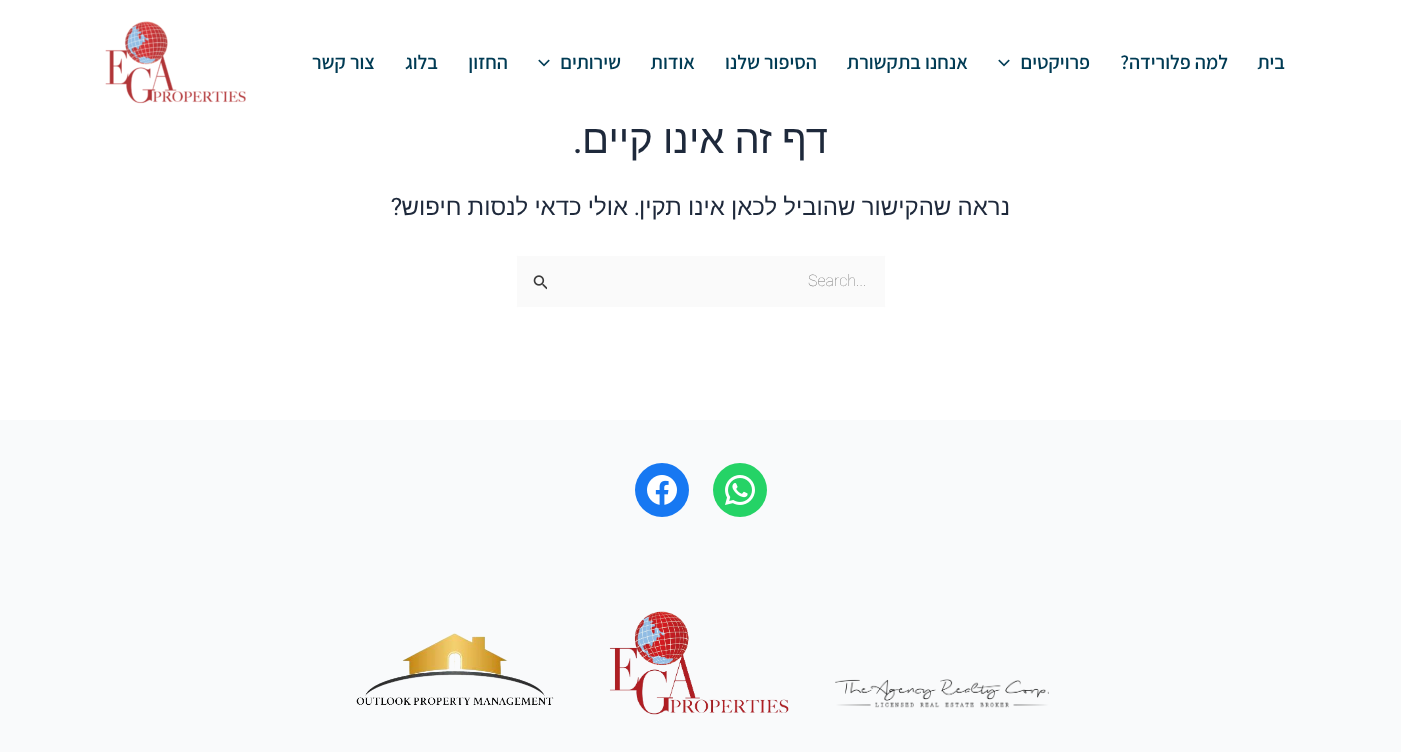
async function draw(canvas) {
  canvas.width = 1401
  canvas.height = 752
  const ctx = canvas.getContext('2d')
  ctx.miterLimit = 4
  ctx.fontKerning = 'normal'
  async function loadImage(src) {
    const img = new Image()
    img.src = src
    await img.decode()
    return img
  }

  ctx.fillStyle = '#fff'
  ctx.fillRect(0, 0, 1401, 752)
  ctx.direction = 'rtl'
  ctx.font = '200 20px Assistant'
  ctx.fillStyle = '#003b54'
  ctx.fillText('בית', 1285, 69)
  ctx.fillText('למה פלורידה?', 1228, 69)
  ctx.fillText('פרויקטים', 1090, 69)
  ctx.drawImage(await loadImage('image0.png'), 998, 59, 12, 8)
  ctx.fillText('אנחנו בתקשורת', 968, 69)
  ctx.fillText('הסיפור שלנו', 817, 69)
  ctx.fillText('אודות', 695, 69)
  ctx.fillText('שירותים', 621, 69)
  ctx.drawImage(await loadImage('image0.png'), 538, 59, 12, 8)
  ctx.fillText('החזון', 508, 69)
  ctx.fillText('בלוג', 438, 69)
  ctx.fillText('צור קשר', 375, 69)
  ctx.drawImage(await loadImage('image1.png'), 105, 21, 141, 83)
  ctx.wordSpacing = '-1px'
  ctx.font = '40px Liberation Sans'
  ctx.fillStyle = '#1e293b'
  ctx.fillText('דף זה אינו קיים', 828, 153)
  ctx.wordSpacing = '0px'
  ctx.font = '40px Roboto'
  ctx.fillText('.', 583, 153)
  ctx.wordSpacing = '-0.5px'
  ctx.font = '24px Liberation Sans'
  ctx.fillText('נראה שהקישור שהוביל לכאן אינו תקין', 1010, 215)
  ctx.wordSpacing = '0px'
  ctx.font = '24px Roboto'
  ctx.fillText('.', 640, 215)
  ctx.wordSpacing = '-0.5px'
  ctx.font = '24px Liberation Sans'
  ctx.fillText('אולי כדאי לנסות חיפוש', 628, 215)
  ctx.wordSpacing = '0px'
  ctx.font = '24px Roboto'
  ctx.fillText('?', 402, 215)
  ctx.fillStyle = '#fafafa'
  ctx.beginPath()
  ctx.roundRect(516.5, 255.5, 369, 52, 1.5)
  ctx.fill()
  ctx.strokeStyle = '#fff'
  ctx.stroke()
  ctx.direction = 'ltr'
  ctx.font = '100 16px Roboto'
  ctx.fillStyle = '#757575'
  ctx.fillText('Search...', 808, 286)
  ctx.drawImage(await loadImage('image2.png'), 533, 275, 14, 15)
  ctx.fillStyle = '#f9fafb'
  ctx.fillRect(0, 420, 1401, 332)
  ctx.fillStyle = '#25d366'
  ctx.beginPath()
  ctx.arc(740, 490, 27, 0, 2 * Math.PI)
  ctx.fill()
  ctx.drawImage(await loadImage('image3.png'), 725, 475, 30, 30)
  ctx.fillStyle = '#1778f2'
  ctx.beginPath()
  ctx.arc(662, 490, 27, 0, 2 * Math.PI)
  ctx.fill()
  ctx.drawImage(await loadImage('image4.png'), 647, 475, 30, 30)
  ctx.drawImage(await loadImage('image5.png'), 835, 679, 214, 29)
  ctx.drawImage(await loadImage('image6.png'), 609, 611, 180, 104)
  ctx.drawImage(await loadImage('image7.png'), 356, 633, 198, 72)
}

draw(document.querySelector('canvas'))
